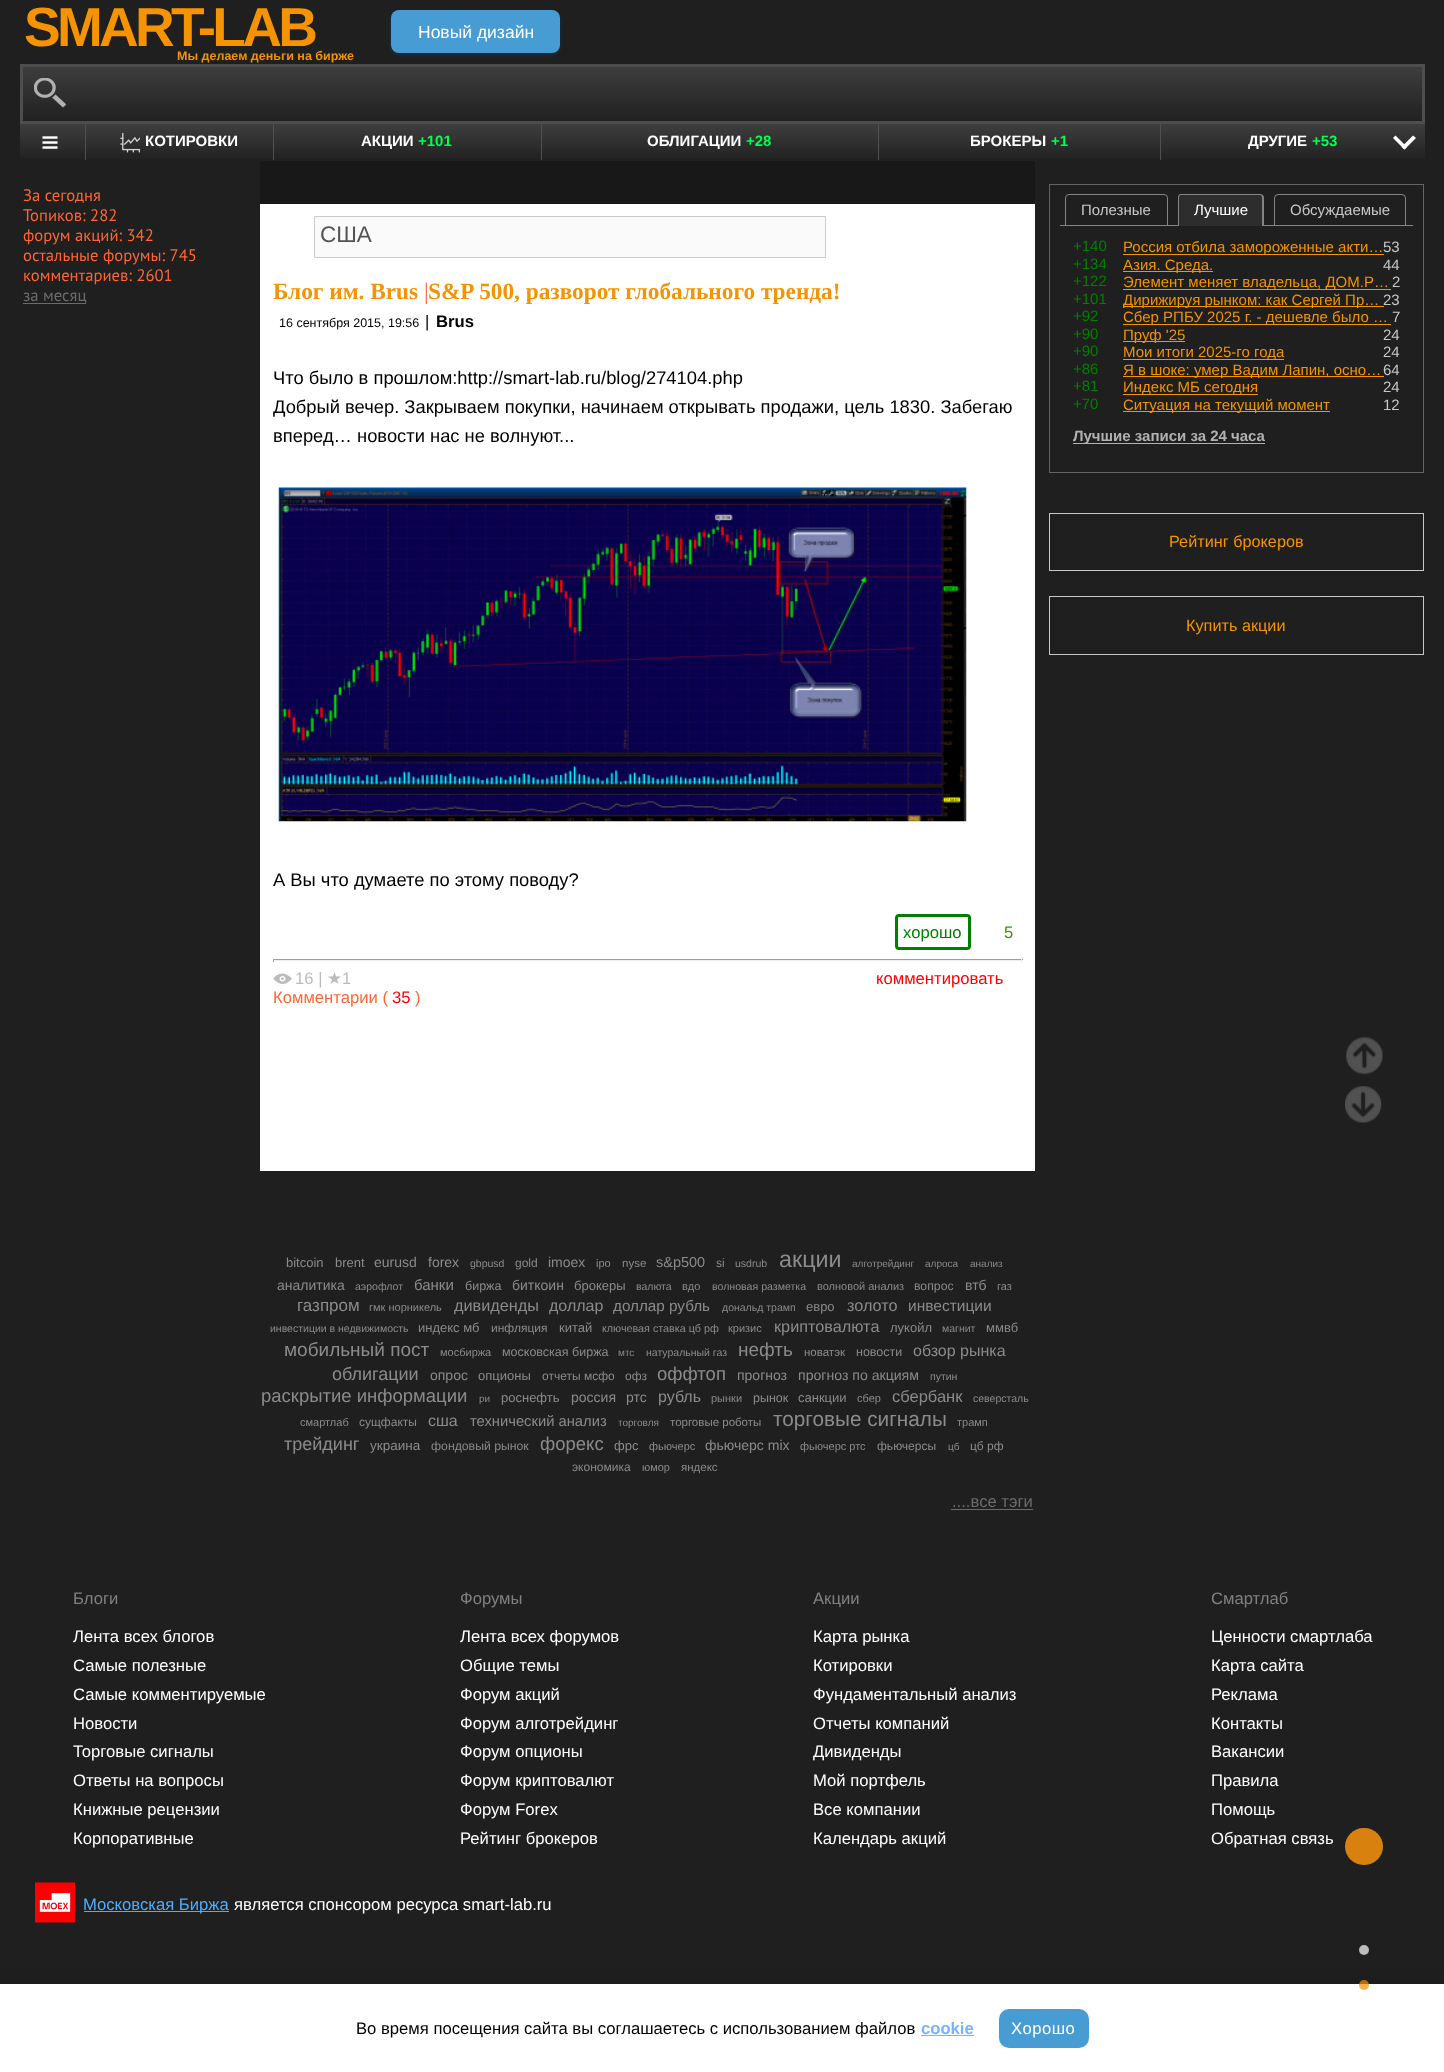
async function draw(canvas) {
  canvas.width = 1444
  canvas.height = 2072
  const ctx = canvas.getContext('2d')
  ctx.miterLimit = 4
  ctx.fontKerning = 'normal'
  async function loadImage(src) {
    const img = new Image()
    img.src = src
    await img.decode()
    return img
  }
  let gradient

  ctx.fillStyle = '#1f1f1f'
  ctx.fillRect(0, 0, 1444, 2072)
  ctx.letterSpacing = '-3.75px'
  ctx.font = 'bold 55px Liberation Sans'
  ctx.fillStyle = '#f59300'
  ctx.fillText('SMART-LAB', 24, 46)
  ctx.letterSpacing = '0px'
  ctx.font = 'bold 12.5px Liberation Sans'
  ctx.fillText('Мы делаем деньги на бирже', 177, 60)
  ctx.fillStyle = '#0b54834d'
  ctx.filter = 'blur(2.5px)'
  ctx.beginPath()
  ctx.roundRect(391, 13, 169, 42, 8)
  ctx.fill()
  ctx.filter = 'none'
  ctx.fillStyle = '#479cd3'
  ctx.beginPath()
  ctx.roundRect(391, 10, 169, 43, 8)
  ctx.fill()
  ctx.font = '17.5px Liberation Sans'
  ctx.fillStyle = '#fff'
  ctx.fillText('Новый дизайн', 418, 38)
  ctx.fillStyle = '#d9810f'
  ctx.beginPath()
  ctx.roundRect(1345, 1828, 38, 37, 18.5)
  ctx.fill()
  ctx.fillStyle = '#bcbcbc'
  ctx.beginPath()
  ctx.arc(1364, 1950, 5, 0, 2 * Math.PI)
  ctx.fill()
  ctx.fillStyle = '#00000059'
  ctx.filter = 'blur(9.5px)'
  ctx.beginPath()
  ctx.rect(0, 1990, 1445, 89)
  ctx.fill()
  ctx.filter = 'none'
  ctx.fillStyle = '#fff'
  ctx.fillRect(0, 1984, 1444, 88)
  ctx.fillStyle = '#f59300b3'
  ctx.beginPath()
  ctx.arc(1364, 1985, 5, 0, 2 * Math.PI)
  ctx.fill()
  gradient = ctx.createLinearGradient(723, 66, 723, 121)
  gradient.addColorStop(0, '#3e3e3e')
  gradient.addColorStop(1, '#212121')
  ctx.fillStyle = gradient
  ctx.fillRect(23, 67, 1399, 53)
  ctx.strokeStyle = '#4e4e4e'
  ctx.lineWidth = 3
  ctx.strokeRect(21.5, 65.5, 1402, 57)
  ctx.drawImage(await loadImage('image0.png'), 34, 78, 32, 30)
  gradient = ctx.createLinearGradient(723, 124, 723, 160)
  gradient.addColorStop(0, '#3e3e3e')
  gradient.addColorStop(1, '#212121')
  ctx.fillStyle = gradient
  ctx.fillRect(20, 124, 1405, 35)
  ctx.drawImage(await loadImage('image1.png'), 42, 136, 16, 13)
  ctx.fillStyle = '#505050'
  ctx.fillRect(85, 124, 1, 36)
  ctx.drawImage(await loadImage('image2.png'), 120, 133, 20, 20)
  ctx.font = 'bold 15px Liberation Sans'
  ctx.fillStyle = '#fff'
  ctx.fillText('КОТИРОВКИ', 145, 146)
  ctx.fillStyle = '#505050'
  ctx.fillRect(273, 124, 1, 36)
  ctx.fillStyle = '#fff'
  ctx.fillText('АКЦИИ', 361, 146)
  ctx.fillStyle = '#00ff4e'
  ctx.fillText('+101', 418, 146)
  ctx.fillStyle = '#505050'
  ctx.fillRect(541, 124, 1, 36)
  ctx.fillStyle = '#fff'
  ctx.fillText('ОБЛИГАЦИИ', 647, 146)
  ctx.fillStyle = '#00ff4e'
  ctx.fillText('+28', 746, 146)
  ctx.fillStyle = '#505050'
  ctx.fillRect(878, 124, 1, 36)
  ctx.fillStyle = '#fff'
  ctx.fillText('БРОКЕРЫ', 970, 146)
  ctx.fillStyle = '#00ff4e'
  ctx.fillText('+1', 1051, 146)
  ctx.fillStyle = '#505050'
  ctx.fillRect(1160, 124, 1, 36)
  ctx.fillStyle = '#fff'
  ctx.fillText('ДРУГИЕ', 1248, 146)
  ctx.fillStyle = '#00ff4e'
  ctx.fillText('+53', 1312, 146)
  ctx.fillStyle = '#fff'
  ctx.beginPath()
  ctx.moveTo(1413, 135.5)
  ctx.lineTo(1416, 138)
  ctx.lineTo(1404.5, 149.5)
  ctx.lineTo(1401.5, 147)
  ctx.closePath()
  ctx.fill()
  ctx.beginPath()
  ctx.moveTo(1395.5, 135.5)
  ctx.lineTo(1407, 147)
  ctx.lineTo(1404.5, 149.5)
  ctx.lineTo(1393, 138)
  ctx.closePath()
  ctx.fill()
  ctx.font = '16.65px PT Sans'
  ctx.fillStyle = '#f63'
  ctx.fillText('За сегодня', 23, 201)
  ctx.fillText('Топиков: 282', 23, 221)
  ctx.fillText('форум акций: 342', 23, 241)
  ctx.fillText('остальные форумы: 745', 23, 261)
  ctx.fillText('комментариев: 2601', 23, 281)
  ctx.fillStyle = '#6b6b6b'
  ctx.fillRect(23, 303, 63, 1)
  ctx.fillText('за месяц', 23, 301)
  ctx.fillStyle = '#181818'
  ctx.fillRect(260, 161, 775, 43)
  ctx.fillStyle = '#fff'
  ctx.fillRect(260, 204, 775, 967)
  ctx.fillStyle = '#fafafa'
  ctx.beginPath()
  ctx.rect(314.5, 216.5, 511, 41)
  ctx.fill()
  ctx.strokeStyle = '#ccc'
  ctx.lineWidth = 1
  ctx.stroke()
  ctx.font = '22.5px Liberation Sans'
  ctx.fillStyle = '#555'
  ctx.fillText('США', 320, 242)
  ctx.font = 'bold 23.3px Liberation Serif'
  ctx.fillStyle = '#f59300'
  ctx.fillText('Блог им. Brus', 273, 299)
  ctx.font = '23.3px Liberation Serif'
  ctx.fillStyle = '#f63'
  ctx.fillText('|', 424, 299)
  ctx.font = 'bold 23.3px Liberation Serif'
  ctx.fillStyle = '#f59300'
  ctx.fillText('S&P 500, разворот глобального тренда!', 428, 299)
  ctx.font = '12.5px Liberation Sans'
  ctx.fillStyle = '#000'
  ctx.fillText('16 сентября 2015, 19:56', 279, 327)
  ctx.font = '16.65px Liberation Sans'
  ctx.fillText('|', 425, 327)
  ctx.font = 'bold 16.65px Liberation Sans'
  ctx.fillText('Brus', 436, 327)
  ctx.font = '18.35px Liberation Sans'
  ctx.fillText('Что было в прошлом:http://smart-lab.ru/blog/274104.php', 273, 384)
  ctx.fillText('Добрый вечер. Закрываем покупки, начинаем открывать продажи, цель 1830. Забегаю', 273, 413)
  ctx.fillText('вперед… новости нас не волнуют...', 273, 442)
  ctx.drawImage(await loadImage('image3.png'), 278, 487, 689, 335)
  ctx.fillText('А Вы что думаете по этому поводу?', 273, 886)
  ctx.beginPath()
  ctx.roundRect(896.5, 915.5, 73, 33, 2.5)
  ctx.strokeStyle = '#008000'
  ctx.lineWidth = 3
  ctx.stroke()
  ctx.font = '16.65px Liberation Sans'
  ctx.fillStyle = '#008000'
  ctx.fillText('хорошо', 903, 938)
  ctx.fillStyle = '#390'
  ctx.fillText('5', 1004, 938)
  ctx.fillStyle = '#9f9f9f'
  ctx.fillRect(273, 959, 750, 1)
  ctx.fillStyle = '#eee'
  ctx.fillRect(1021, 959, 1, 3)
  ctx.fillRect(273, 960, 750, 1)
  ctx.fillStyle = '#9f9f9f'
  ctx.fillRect(273, 959, 1, 3)
  ctx.drawImage(await loadImage('image4.png'), 273, 973, 19, 11)
  ctx.fillStyle = '#bbb'
  ctx.fillText('16 |', 295, 984)
  ctx.font = '16.65px DejaVu Sans'
  ctx.fillText('★', 327, 984)
  ctx.font = '16.65px Liberation Sans'
  ctx.fillText('1', 342, 984)
  ctx.fillStyle = '#f00'
  ctx.fillText('комментировать', 876, 984)
  ctx.fillStyle = '#f63'
  ctx.fillText('Комментарии (', 273, 1003)
  ctx.fillStyle = '#f00'
  ctx.fillText('35', 392, 1003)
  ctx.fillStyle = '#f63'
  ctx.fillText(')', 415, 1003)
  ctx.strokeStyle = '#646464'
  ctx.lineWidth = 1
  ctx.strokeRect(1049.5, 184.5, 374, 288)
  ctx.fillStyle = '#848484'
  ctx.fillRect(1060, 225, 353, 1)
  ctx.beginPath()
  ctx.roundRect(1065.5, 194.5, 102, 31, [3.5, 3.5, 0, 0])
  ctx.strokeStyle = '#848484'
  ctx.stroke()
  ctx.font = '15px Liberation Sans'
  ctx.fillStyle = '#c8c8c8'
  ctx.fillText('Полезные', 1081, 215)
  ctx.fillStyle = '#2d2d2d'
  ctx.beginPath()
  ctx.roundRect(1178, 194, 86, 32, [4, 4, 0, 0])
  ctx.fill()
  ctx.fillStyle = '#848484'
  ctx.beginPath()
  ctx.moveTo(1181, 194)
  ctx.lineTo(1260, 194)
  ctx.bezierCurveTo(1262, 194, 1264, 195, 1264, 198)
  ctx.lineTo(1264, 226)
  ctx.lineTo(1178, 226)
  ctx.lineTo(1178, 198)
  ctx.bezierCurveTo(1178, 195, 1179, 194, 1181, 194)
  ctx.closePath()
  ctx.moveTo(1181, 195)
  ctx.lineTo(1260, 195)
  ctx.bezierCurveTo(1261, 195, 1262, 196, 1262, 198)
  ctx.lineTo(1262, 226)
  ctx.lineTo(1179, 226)
  ctx.lineTo(1179, 198)
  ctx.bezierCurveTo(1179, 196, 1180, 195, 1181, 195)
  ctx.closePath()
  ctx.fill('evenodd')
  ctx.fillStyle = '#fff'
  ctx.fillText('Лучшие', 1194, 215)
  ctx.beginPath()
  ctx.roundRect(1274.5, 194.5, 131, 31, [3.5, 3.5, 0, 0])
  ctx.stroke()
  ctx.fillStyle = '#c8c8c8'
  ctx.fillText('Обсуждаемые', 1290, 215)
  ctx.fillStyle = '#008000'
  ctx.fillText('+140', 1073, 251)
  ctx.fillStyle = '#f59300'
  ctx.fillRect(1123, 254, 261, 1)
  ctx.fillText('Россия отбила замороженные акти…', 1123, 252)
  ctx.fillStyle = '#c8c8c8'
  ctx.fillText('53', 1383, 252)
  ctx.fillStyle = '#008000'
  ctx.fillText('+134', 1073, 269)
  ctx.fillStyle = '#f59300'
  ctx.fillRect(1123, 271, 90, 1)
  ctx.fillText('Азия. Среда.', 1123, 270)
  ctx.fillStyle = '#c8c8c8'
  ctx.fillText('44', 1383, 270)
  ctx.fillStyle = '#008000'
  ctx.fillText('+122', 1073, 286)
  ctx.fillStyle = '#f59300'
  ctx.fillRect(1123, 289, 268, 1)
  ctx.fillText('Элемент меняет владельца, ДОМ.Р…', 1123, 287)
  ctx.fillStyle = '#c8c8c8'
  ctx.fillText('2', 1392, 287)
  ctx.fillStyle = '#008000'
  ctx.fillText('+101', 1073, 304)
  ctx.fillStyle = '#f59300'
  ctx.fillRect(1123, 306, 261, 1)
  ctx.save()
  ctx.beginPath()
  ctx.rect(1123, 291, 261, 18)
  ctx.clip()
  ctx.fillText('Дирижируя рынком: как Сергей Пр…', 1123, 305)
  ctx.restore()
  ctx.fillStyle = '#c8c8c8'
  ctx.fillText('23', 1383, 305)
  ctx.fillStyle = '#008000'
  ctx.fillText('+92', 1073, 321)
  ctx.fillStyle = '#f59300'
  ctx.fillRect(1123, 324, 268, 1)
  ctx.fillText('Сбер РПБУ 2025 г. - дешевле было …', 1123, 322)
  ctx.fillStyle = '#c8c8c8'
  ctx.fillText('7', 1392, 322)
  ctx.fillStyle = '#008000'
  ctx.fillText('+90', 1073, 339)
  ctx.fillStyle = '#f59300'
  ctx.fillRect(1123, 341, 62, 1)
  ctx.fillText('Пруф \'25', 1123, 340)
  ctx.fillStyle = '#c8c8c8'
  ctx.fillText('24', 1383, 340)
  ctx.fillStyle = '#008000'
  ctx.fillText('+90', 1073, 356)
  ctx.fillStyle = '#f59300'
  ctx.fillRect(1123, 359, 161, 1)
  ctx.fillText('Мои итоги 2025-го года', 1123, 357)
  ctx.fillStyle = '#c8c8c8'
  ctx.fillText('24', 1383, 357)
  ctx.fillStyle = '#008000'
  ctx.fillText('+86', 1073, 374)
  ctx.fillStyle = '#f59300'
  ctx.fillRect(1123, 376, 261, 1)
  ctx.fillText('Я в шоке: умер Вадим Лапин, осно…', 1123, 375)
  ctx.fillStyle = '#c8c8c8'
  ctx.fillText('64', 1383, 375)
  ctx.fillStyle = '#008000'
  ctx.fillText('+81', 1073, 391)
  ctx.fillStyle = '#f59300'
  ctx.fillRect(1123, 394, 135, 1)
  ctx.fillText('Индекс МБ сегодня', 1123, 392)
  ctx.fillStyle = '#c8c8c8'
  ctx.fillText('24', 1383, 392)
  ctx.fillStyle = '#008000'
  ctx.fillText('+70', 1073, 409)
  ctx.fillStyle = '#f59300'
  ctx.fillRect(1123, 411, 207, 1)
  ctx.fillText('Ситуация на текущий момент', 1123, 410)
  ctx.fillStyle = '#c8c8c8'
  ctx.fillText('12', 1383, 410)
  ctx.fillStyle = '#b2b2b2'
  ctx.fillRect(1073, 443, 192, 1)
  ctx.font = 'bold 15px Liberation Sans'
  ctx.fillText('Лучшие записи за 24 часа', 1073, 441)
  ctx.strokeStyle = '#c8c8c8'
  ctx.strokeRect(1049.5, 513.5, 374, 57)
  ctx.font = '16.25px Liberation Sans'
  ctx.fillStyle = '#f59300'
  ctx.fillText('Рейтинг брокеров', 1169, 547)
  ctx.strokeRect(1049.5, 596.5, 374, 58)
  ctx.fillText('Купить акции', 1186, 631)
  ctx.font = '13px Liberation Sans'
  ctx.fillStyle = '#8b8b8b'
  ctx.fillText('bitcoin', 286, 1267)
  ctx.fillText('brent', 335, 1267)
  ctx.font = '14px Liberation Sans'
  ctx.fillText('eurusd', 374, 1267)
  ctx.fillText('forex', 428, 1267)
  ctx.font = '10.5px Liberation Sans'
  ctx.fillText('gbpusd', 470, 1267)
  ctx.font = '12px Liberation Sans'
  ctx.fillText('gold', 515, 1267)
  ctx.font = '14px Liberation Sans'
  ctx.fillText('imoex', 548, 1267)
  ctx.font = '11px Liberation Sans'
  ctx.fillText('ipo', 596, 1267)
  ctx.font = '11.5px Liberation Sans'
  ctx.fillText('nyse', 622, 1267)
  ctx.font = '14.5px Liberation Sans'
  ctx.fillText('s&p500', 656, 1267)
  ctx.font = '12px Liberation Sans'
  ctx.fillText('si', 716, 1267)
  ctx.font = '10.5px Liberation Sans'
  ctx.fillText('usdrub', 735, 1267)
  ctx.font = '23.3px Liberation Sans'
  ctx.fillText('акции', 779, 1267)
  ctx.font = '10px Liberation Sans'
  ctx.fillText('алготрейдинг', 852, 1267)
  ctx.fillText('алроса', 925, 1267)
  ctx.fillText('анализ', 970, 1267)
  ctx.font = '14px Liberation Sans'
  ctx.fillText('аналитика', 277, 1290)
  ctx.font = '10.5px Liberation Sans'
  ctx.fillText('аэрофлот', 355, 1290)
  ctx.font = '15px Liberation Sans'
  ctx.fillText('банки', 414, 1290)
  ctx.font = '12.5px Liberation Sans'
  ctx.fillText('биржа', 465, 1290)
  ctx.font = '14px Liberation Sans'
  ctx.fillText('биткоин', 512, 1290)
  ctx.font = '13px Liberation Sans'
  ctx.fillText('брокеры', 574, 1290)
  ctx.font = '10.5px Liberation Sans'
  ctx.fillText('валюта', 636, 1290)
  ctx.font = '11px Liberation Sans'
  ctx.fillText('вдо', 682, 1290)
  ctx.font = '10.6px Liberation Sans'
  ctx.fillText('волновая разметка', 712, 1290)
  ctx.font = '11px Liberation Sans'
  ctx.fillText('волновой анализ', 817, 1290)
  ctx.font = '12.25px Liberation Sans'
  ctx.fillText('вопрос', 914, 1290)
  ctx.font = '14px Liberation Sans'
  ctx.fillText('втб', 965, 1290)
  ctx.font = '11px Liberation Sans'
  ctx.fillText('газ', 997, 1290)
  ctx.font = '17px Liberation Sans'
  ctx.fillText('газпром', 297, 1311)
  ctx.font = '11px Liberation Sans'
  ctx.fillText('гмк норникель', 369, 1311)
  ctx.font = '16.25px Liberation Sans'
  ctx.fillText('дивиденды', 454, 1311)
  ctx.font = '16px Liberation Sans'
  ctx.fillText('доллар', 549, 1311)
  ctx.font = '15.25px Liberation Sans'
  ctx.fillText('доллар рубль', 613, 1311)
  ctx.font = '10.5px Liberation Sans'
  ctx.fillText('дональд трамп', 722, 1311)
  ctx.font = '13px Liberation Sans'
  ctx.fillText('евро', 806, 1311)
  ctx.font = '16.25px Liberation Sans'
  ctx.fillText('золото', 847, 1311)
  ctx.font = '15.5px Liberation Sans'
  ctx.fillText('инвестиции', 908, 1311)
  ctx.font = '10.5px Liberation Sans'
  ctx.fillText('инвестиции в недвижимость', 270, 1332)
  ctx.font = '13px Liberation Sans'
  ctx.fillText('индекс мб', 418, 1332)
  ctx.font = '12px Liberation Sans'
  ctx.fillText('инфляция', 491, 1332)
  ctx.font = '13px Liberation Sans'
  ctx.fillText('китай', 559, 1332)
  ctx.font = '10.75px Liberation Sans'
  ctx.fillText('ключевая ставка цб рф', 602, 1332)
  ctx.font = '11px Liberation Sans'
  ctx.fillText('кризис', 728, 1332)
  ctx.font = '16.25px Liberation Sans'
  ctx.fillText('криптовалюта', 774, 1332)
  ctx.font = '13px Liberation Sans'
  ctx.fillText('лукойл', 890, 1332)
  ctx.font = '10.5px Liberation Sans'
  ctx.fillText('магнит', 942, 1332)
  ctx.font = '13px Liberation Sans'
  ctx.fillText('ммвб', 986, 1332)
  ctx.font = '19px Liberation Sans'
  ctx.fillText('мобильный пост', 284, 1356)
  ctx.font = '11px Liberation Sans'
  ctx.fillText('мосбиржа', 440, 1356)
  ctx.font = '12.5px Liberation Sans'
  ctx.fillText('московская биржа', 502, 1356)
  ctx.font = '10px Liberation Sans'
  ctx.fillText('мтс', 618, 1356)
  ctx.font = '10.5px Liberation Sans'
  ctx.fillText('натуральный газ', 646, 1356)
  ctx.font = '19px Liberation Sans'
  ctx.fillText('нефть', 738, 1356)
  ctx.font = '11.5px Liberation Sans'
  ctx.fillText('новатэк', 804, 1356)
  ctx.font = '12.5px Liberation Sans'
  ctx.fillText('новости', 856, 1356)
  ctx.font = '16px Liberation Sans'
  ctx.fillText('обзор рынка', 913, 1356)
  ctx.font = '18px Liberation Sans'
  ctx.fillText('облигации', 332, 1380)
  ctx.font = '14px Liberation Sans'
  ctx.fillText('опрос', 430, 1380)
  ctx.font = '13px Liberation Sans'
  ctx.fillText('опционы', 478, 1380)
  ctx.font = '12px Liberation Sans'
  ctx.fillText('отчеты мсфо', 542, 1380)
  ctx.fillText('офз', 625, 1380)
  ctx.font = '18.5px Liberation Sans'
  ctx.fillText('оффтоп', 657, 1380)
  ctx.font = '14px Liberation Sans'
  ctx.fillText('прогноз', 737, 1380)
  ctx.font = '14.1px Liberation Sans'
  ctx.fillText('прогноз по акциям', 798, 1380)
  ctx.font = '10.5px Liberation Sans'
  ctx.fillText('путин', 930, 1380)
  ctx.font = '18.5px Liberation Sans'
  ctx.fillText('раскрытие информации', 261, 1402)
  ctx.font = '10px Liberation Sans'
  ctx.fillText('ри', 479, 1402)
  ctx.font = '13px Liberation Sans'
  ctx.fillText('роснефть', 501, 1402)
  ctx.font = '14px Liberation Sans'
  ctx.fillText('россия', 571, 1402)
  ctx.fillText('ртс', 626, 1402)
  ctx.font = '16px Liberation Sans'
  ctx.fillText('рубль', 658, 1402)
  ctx.font = '11px Liberation Sans'
  ctx.fillText('рынки', 711, 1402)
  ctx.font = '12.5px Liberation Sans'
  ctx.fillText('рынок', 753, 1402)
  ctx.font = '13px Liberation Sans'
  ctx.fillText('санкции', 798, 1402)
  ctx.font = '11px Liberation Sans'
  ctx.fillText('сбер', 857, 1402)
  ctx.font = '16.5px Liberation Sans'
  ctx.fillText('сбербанк', 892, 1402)
  ctx.font = '10.5px Liberation Sans'
  ctx.fillText('северсталь', 973, 1402)
  ctx.font = '11px Liberation Sans'
  ctx.fillText('смартлаб', 300, 1426)
  ctx.font = '12px Liberation Sans'
  ctx.fillText('сущфакты', 359, 1426)
  ctx.font = '16px Liberation Sans'
  ctx.fillText('сша', 428, 1426)
  ctx.font = '14.75px Liberation Sans'
  ctx.fillText('технический анализ', 470, 1426)
  ctx.font = '10px Liberation Sans'
  ctx.fillText('торговля', 618, 1426)
  ctx.font = '11.5px Liberation Sans'
  ctx.fillText('торговые роботы', 670, 1426)
  ctx.font = '20.75px Liberation Sans'
  ctx.fillText('торговые сигналы', 773, 1426)
  ctx.font = '11px Liberation Sans'
  ctx.fillText('трамп', 957, 1426)
  ctx.font = '18px Liberation Sans'
  ctx.fillText('трейдинг', 284, 1450)
  ctx.font = '13.5px Liberation Sans'
  ctx.fillText('украина', 370, 1450)
  ctx.font = '12.25px Liberation Sans'
  ctx.fillText('фондовый рынок', 431, 1450)
  ctx.font = '18.5px Liberation Sans'
  ctx.fillText('форекс', 540, 1450)
  ctx.font = '13px Liberation Sans'
  ctx.fillText('фрс', 614, 1450)
  ctx.font = '11px Liberation Sans'
  ctx.fillText('фьючерс', 649, 1450)
  ctx.font = '14px Liberation Sans'
  ctx.fillText('фьючерс mix', 705, 1450)
  ctx.font = '11px Liberation Sans'
  ctx.fillText('фьючерс ртс', 800, 1450)
  ctx.font = '12px Liberation Sans'
  ctx.fillText('фьючерсы', 877, 1450)
  ctx.font = '10px Liberation Sans'
  ctx.fillText('цб', 948, 1450)
  ctx.font = '12px Liberation Sans'
  ctx.fillText('цб рф', 970, 1450)
  ctx.fillText('экономика', 572, 1471)
  ctx.font = '11px Liberation Sans'
  ctx.fillText('юмор', 642, 1471)
  ctx.font = '11.5px Liberation Sans'
  ctx.fillText('яндекс', 681, 1471)
  ctx.font = '16.65px Liberation Sans'
  ctx.fillStyle = '#6b6b6b'
  ctx.fillText('....все тэги', 952, 1507)
  ctx.fillRect(951, 1509, 82, 1)
  ctx.drawImage(await loadImage('image5.png'), 1346, 1037, 37, 38)
  ctx.drawImage(await loadImage('image6.png'), 1345, 1086, 37, 37)
  ctx.fillStyle = '#808080'
  ctx.fillText('Блоги', 73, 1604)
  ctx.fillStyle = '#fff'
  ctx.fillText('Лента всех блогов', 73, 1642)
  ctx.fillText('Самые полезные', 73, 1671)
  ctx.fillText('Самые комментируемые', 73, 1700)
  ctx.fillText('Новости', 73, 1729)
  ctx.fillText('Торговые сигналы', 73, 1757)
  ctx.fillText('Ответы на вопросы', 73, 1786)
  ctx.fillText('Книжные рецензии', 73, 1815)
  ctx.fillText('Корпоративные', 73, 1844)
  ctx.fillStyle = '#808080'
  ctx.fillText('Форумы', 460, 1604)
  ctx.fillStyle = '#fff'
  ctx.fillText('Лента всех форумов', 460, 1642)
  ctx.fillText('Общие темы', 460, 1671)
  ctx.fillText('Форум акций', 460, 1700)
  ctx.fillText('Форум алготрейдинг', 460, 1729)
  ctx.fillText('Форум опционы', 460, 1757)
  ctx.fillText('Форум криптовалют', 460, 1786)
  ctx.fillText('Форум Forex', 460, 1815)
  ctx.fillText('Рейтинг брокеров', 460, 1844)
  ctx.fillStyle = '#808080'
  ctx.fillText('Акции', 813, 1604)
  ctx.fillStyle = '#fff'
  ctx.fillText('Карта рынка', 813, 1642)
  ctx.fillText('Котировки', 813, 1671)
  ctx.fillText('Фундаментальный анализ', 813, 1700)
  ctx.fillText('Отчеты компаний', 813, 1729)
  ctx.fillText('Дивиденды', 813, 1757)
  ctx.fillText('Мой портфель', 813, 1786)
  ctx.fillText('Все компании', 813, 1815)
  ctx.fillText('Календарь акций', 813, 1844)
  ctx.fillStyle = '#808080'
  ctx.fillText('Смартлаб', 1211, 1604)
  ctx.fillStyle = '#fff'
  ctx.fillText('Ценности смартлаба', 1211, 1642)
  ctx.fillText('Карта сайта', 1211, 1671)
  ctx.fillText('Реклама', 1211, 1700)
  ctx.fillText('Контакты', 1211, 1729)
  ctx.fillText('Вакансии', 1211, 1757)
  ctx.fillText('Правила', 1211, 1786)
  ctx.fillText('Помощь', 1211, 1815)
  ctx.fillText('Обратная связь', 1211, 1844)
  ctx.drawImage(await loadImage('image7.png'), 35, 1882, 40, 41)
  ctx.fillStyle = '#4eadff'
  ctx.fillRect(84, 1911, 145, 1)
  ctx.fillText('Московская Биржа', 83, 1910)
  ctx.fillStyle = '#fff'
  ctx.fillText('является спонсором ресурса smart-lab.ru', 234, 1910)
  ctx.fillStyle = '#000'
  ctx.fillText('Во время посещения сайта вы соглашаетесь с использованием файлов', 356, 2034)
  ctx.font = 'bold 16.65px Liberation Sans'
  ctx.fillStyle = '#77b3ff'
  ctx.fillText('cookie', 921, 2034)
  ctx.fillRect(921, 2035, 53, 1)
  ctx.fillStyle = '#479cd3'
  ctx.beginPath()
  ctx.roundRect(999, 2009, 90, 39, 10)
  ctx.fill()
  ctx.letterSpacing = '0.5px'
  ctx.font = '16.65px Liberation Sans'
  ctx.fillStyle = '#fff'
  ctx.fillText('Хорошо', 1011, 2034)
}

draw(document.querySelector('canvas'))
